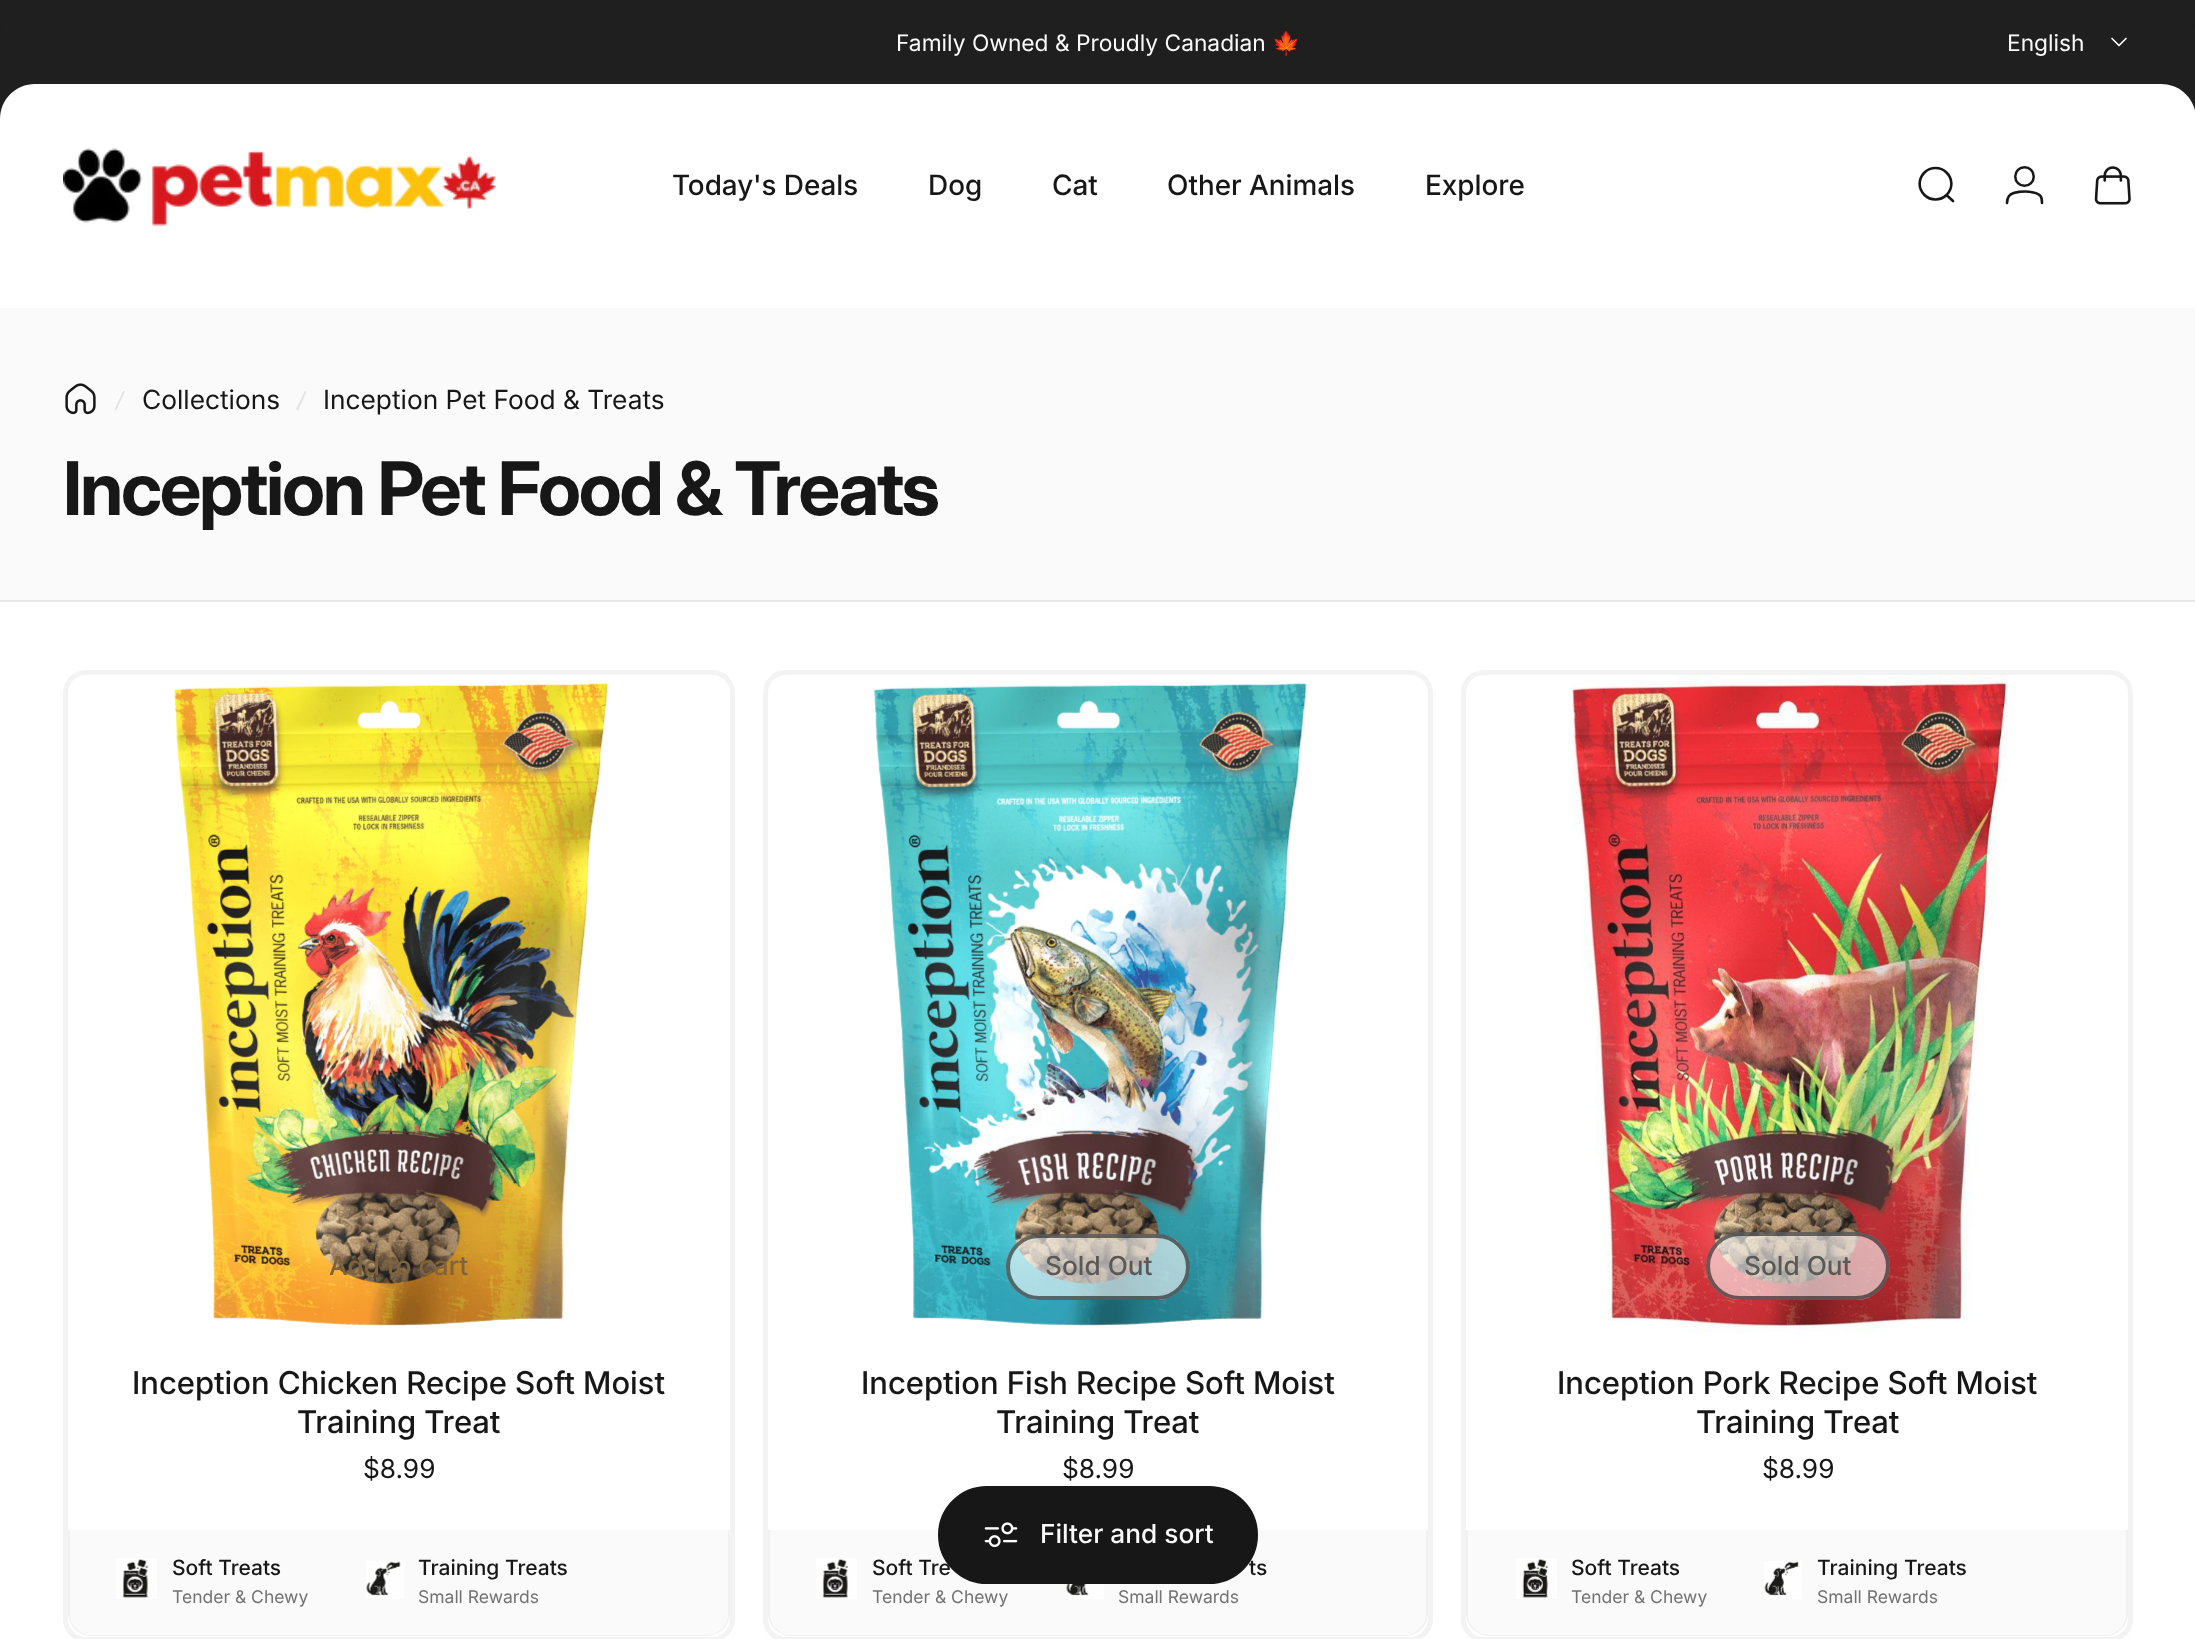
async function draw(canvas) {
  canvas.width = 2195
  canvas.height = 1639
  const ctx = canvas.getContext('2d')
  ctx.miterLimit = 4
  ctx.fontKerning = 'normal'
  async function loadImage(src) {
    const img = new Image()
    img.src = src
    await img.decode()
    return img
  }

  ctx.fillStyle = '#fff'
  ctx.fillRect(0, 0, 2195, 1639)
  ctx.fillStyle = '#1f1f1f'
  ctx.fillRect(0, 0, 2195, 35)
  ctx.beginPath()
  ctx.moveTo(35, 0)
  ctx.lineTo(2161, 0)
  ctx.bezierCurveTo(2180.5, 0, 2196, 15.5, 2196, 35)
  ctx.lineTo(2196, 119)
  ctx.lineTo(0, 119)
  ctx.lineTo(0, 35)
  ctx.bezierCurveTo(0, 15.5, 15.5, 0, 35, 0)
  ctx.closePath()
  ctx.fill()
  ctx.font = '22.75px "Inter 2"'
  ctx.fillStyle = '#fafafa'
  ctx.fillText('Family Owned & Proudly Canadian', 896, 51)
  ctx.font = '22.75px Noto Color Emoji'
  ctx.fillText('🍁', 1272, 51)
  ctx.font = '22.75px "Inter 2"'
  ctx.fillText('English', 2007, 51)
  ctx.beginPath()
  ctx.moveTo(2112, 38.5)
  ctx.lineTo(2119, 45.5)
  ctx.lineTo(2126, 38.5)
  ctx.strokeStyle = '#fafafa'
  ctx.lineWidth = 1.7
  ctx.lineCap = 'round'
  ctx.lineJoin = 'round'
  ctx.stroke()
  ctx.fillStyle = '#fff'
  ctx.beginPath()
  ctx.moveTo(35, 84)
  ctx.lineTo(2161, 84)
  ctx.bezierCurveTo(2180.5, 84, 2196, 99.5, 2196, 119)
  ctx.lineTo(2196, 287)
  ctx.lineTo(0, 287)
  ctx.lineTo(0, 119)
  ctx.bezierCurveTo(0, 99.5, 15.5, 84, 35, 84)
  ctx.closePath()
  ctx.fill()
  ctx.drawImage(await loadImage('image0.png'), 63, 148, 433, 79)
  ctx.font = '500 28px "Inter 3"'
  ctx.fillStyle = '#171717'
  ctx.fillText('Today\'s Deals', 672, 195)
  ctx.fillText('Dog', 928, 195)
  ctx.fillText('Cat', 1052, 195)
  ctx.fillText('Other Animals', 1167, 195)
  ctx.fillText('Explore', 1425, 195)
  ctx.beginPath()
  ctx.moveTo(1953, 201)
  ctx.lineTo(1946.5, 195)
  ctx.moveTo(1946.5, 195)
  ctx.bezierCurveTo(1953, 188.5, 1953, 179, 1946.5, 172.5)
  ctx.bezierCurveTo(1940.5, 166.5, 1930.5, 166.5, 1924.5, 172.5)
  ctx.bezierCurveTo(1918, 179, 1918, 188.5, 1924.5, 195)
  ctx.bezierCurveTo(1930.5, 201, 1940.5, 201, 1946.5, 195)
  ctx.closePath()
  ctx.strokeStyle = '#171717'
  ctx.lineWidth = 2.6
  ctx.lineJoin = 'miter'
  ctx.stroke()
  ctx.beginPath()
  ctx.arc(2024.5, 176.5, 9.25, 0, 2 * Math.PI)
  ctx.lineWidth = 2.5
  ctx.stroke()
  ctx.beginPath()
  ctx.moveTo(2025, 191.5)
  ctx.bezierCurveTo(2029, 191.5, 2038, 192.5, 2040.5, 196)
  ctx.bezierCurveTo(2042, 198, 2042, 200.5, 2042, 203)
  ctx.moveTo(2025, 191.5)
  ctx.bezierCurveTo(2020.5, 191.5, 2011.5, 192.5, 2009, 196)
  ctx.bezierCurveTo(2007.5, 198, 2007, 200.5, 2007, 203)
  ctx.lineWidth = 2.6
  ctx.stroke()
  ctx.drawImage(await loadImage('image1.png'), 2094, 166, 37, 39)
  ctx.fillStyle = '#fafafa'
  ctx.fillRect(0, 308, 2195, 292)
  ctx.drawImage(await loadImage('image2.png'), 65, 383, 31, 32)
  ctx.fillStyle = '#e3e3e3'
  ctx.beginPath()
  ctx.moveTo(123.5, 390.5)
  ctx.lineTo(125, 391.5)
  ctx.lineTo(116, 410.5)
  ctx.lineTo(114.5, 409.5)
  ctx.closePath()
  ctx.fill()
  ctx.font = '26.4px Inter'
  ctx.fillStyle = '#171717'
  ctx.fillText('Collections', 142, 409)
  ctx.fillStyle = '#e3e3e3'
  ctx.beginPath()
  ctx.moveTo(305, 390.5)
  ctx.lineTo(306.5, 391.5)
  ctx.lineTo(298, 410.5)
  ctx.lineTo(296, 409.5)
  ctx.closePath()
  ctx.fill()
  ctx.fillStyle = '#171717'
  ctx.fillText('Inception Pet Food & Treats', 323, 409)
  ctx.letterSpacing = '-2.25px'
  ctx.font = 'bold 74px Inter'
  ctx.fillText('Inception Pet Food & Treats', 63, 515)
  ctx.fillStyle = '#e8e8e8'
  ctx.fillRect(0, 600, 2195, 2)
  ctx.beginPath()
  ctx.roundRect(65.5, 672.5, 667, 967, 20.5)
  ctx.strokeStyle = '#f3f3f3'
  ctx.lineWidth = 5
  ctx.stroke()
  ctx.drawImage(await loadImage('image3.png'), 174, 683, 434, 643)
  ctx.letterSpacing = '0px'
  ctx.font = '500 26.25px "Inter 2"'
  ctx.fillStyle = '#80633b'
  ctx.fillText('Add to cart', 329, 1275)
  ctx.font = '500 31.4px Inter'
  ctx.fillStyle = '#171717'
  ctx.fillText('Inception Chicken Recipe Soft Moist', 132, 1394)
  ctx.fillText('Training Treat', 297, 1433)
  ctx.font = '26.25px "Inter 2"'
  ctx.fillText('$8.99', 363, 1478)
  ctx.fillStyle = '#f1f1f1'
  ctx.beginPath()
  ctx.moveTo(68, 1530)
  ctx.lineTo(730, 1530)
  ctx.lineTo(730, 1613)
  ctx.bezierCurveTo(730, 1626, 719, 1636, 707, 1636)
  ctx.lineTo(91, 1636)
  ctx.bezierCurveTo(79, 1636, 68, 1626, 68, 1613)
  ctx.closePath()
  ctx.moveTo(70, 1530)
  ctx.lineTo(728, 1530)
  ctx.lineTo(728, 1613)
  ctx.bezierCurveTo(728, 1625, 718, 1634, 707, 1634)
  ctx.lineTo(91, 1634)
  ctx.bezierCurveTo(80, 1634, 70, 1625, 70, 1613)
  ctx.closePath()
  ctx.fill('evenodd')
  ctx.fillStyle = '#fafafa'
  ctx.beginPath()
  ctx.roundRect(70, 1530, 658, 105, [0, 0, 21, 21])
  ctx.fill()
  ctx.drawImage(await loadImage('image4.png'), 116, 1558, 41, 41)
  ctx.font = '500 21px "Inter 2"'
  ctx.fillStyle = '#171717'
  ctx.fillText('Soft Treats', 172, 1575)
  ctx.font = '17.5px "Inter 2"'
  ctx.fillStyle = '#727272'
  ctx.fillText('Tender & Chewy', 172, 1603)
  ctx.drawImage(await loadImage('image5.png'), 366, 1561, 38, 38)
  ctx.font = '500 21px "Inter 2"'
  ctx.fillStyle = '#171717'
  ctx.fillText('Training Treats', 418, 1575)
  ctx.font = '17.5px "Inter 2"'
  ctx.fillStyle = '#727272'
  ctx.fillText('Small Rewards', 418, 1603)
  ctx.beginPath()
  ctx.roundRect(765.5, 672.5, 665, 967, 20.5)
  ctx.stroke()
  ctx.drawImage(await loadImage('image6.png'), 874, 683, 433, 643)
  ctx.fillStyle = '#ffffff99'
  ctx.beginPath()
  ctx.roundRect(1006, 1234, 184, 66, 33)
  ctx.fill()
  ctx.beginPath()
  ctx.roundRect(1008, 1236, 180, 62, 31)
  ctx.strokeStyle = '#17171799'
  ctx.lineWidth = 4
  ctx.stroke()
  ctx.font = '500 26.25px "Inter 2"'
  ctx.fillStyle = '#5a5957'
  ctx.fillText('Sold Out', 1045, 1275)
  ctx.font = '500 31.4px Inter'
  ctx.fillStyle = '#171717'
  ctx.fillText('Inception Fish Recipe Soft Moist', 861, 1394)
  ctx.fillText('Training Treat', 996, 1433)
  ctx.font = '26.25px "Inter 2"'
  ctx.fillText('$8.99', 1062, 1478)
  ctx.fillStyle = '#f1f1f1'
  ctx.beginPath()
  ctx.moveTo(768, 1530)
  ctx.lineTo(1428, 1530)
  ctx.lineTo(1428, 1613)
  ctx.bezierCurveTo(1428, 1626, 1418, 1636, 1405, 1636)
  ctx.lineTo(791, 1636)
  ctx.bezierCurveTo(779, 1636, 768, 1626, 768, 1613)
  ctx.closePath()
  ctx.moveTo(770, 1530)
  ctx.lineTo(1426, 1530)
  ctx.lineTo(1426, 1613)
  ctx.bezierCurveTo(1426, 1625, 1417, 1634, 1405, 1634)
  ctx.lineTo(791, 1634)
  ctx.bezierCurveTo(780, 1634, 770, 1625, 770, 1613)
  ctx.closePath()
  ctx.fill('evenodd')
  ctx.fillStyle = '#fafafa'
  ctx.beginPath()
  ctx.roundRect(770, 1530, 656, 105, [0, 0, 21, 21])
  ctx.fill()
  ctx.drawImage(await loadImage('image4.png'), 816, 1558, 41, 41)
  ctx.font = '500 21px "Inter 2"'
  ctx.fillStyle = '#171717'
  ctx.fillText('Soft Tre', 872, 1575)
  ctx.font = '17.5px "Inter 2"'
  ctx.fillStyle = '#727272'
  ctx.fillText('Tender & Chewy', 872, 1603)
  ctx.drawImage(await loadImage('image7.png'), 1066, 1584, 38, 15)
  ctx.font = '500 21px "Inter 2"'
  ctx.fillStyle = '#171717'
  ctx.fillText('ts', 1249, 1575)
  ctx.font = '17.5px "Inter 2"'
  ctx.fillStyle = '#727272'
  ctx.fillText('Small Rewards', 1118, 1603)
  ctx.beginPath()
  ctx.roundRect(1463.5, 672.5, 667, 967, 20.5)
  ctx.strokeStyle = '#f3f3f3'
  ctx.lineWidth = 5
  ctx.stroke()
  ctx.drawImage(await loadImage('image8.png'), 1572, 675, 436, 658)
  ctx.fillStyle = '#ffffff99'
  ctx.beginPath()
  ctx.roundRect(1706, 1232, 184, 68, 34)
  ctx.fill()
  ctx.beginPath()
  ctx.roundRect(1708, 1234, 180, 64, 32)
  ctx.strokeStyle = '#17171799'
  ctx.lineWidth = 4
  ctx.stroke()
  ctx.font = '500 26.25px "Inter 2"'
  ctx.fillStyle = '#5a5957'
  ctx.fillText('Sold Out', 1744, 1275)
  ctx.font = '500 31.4px Inter'
  ctx.fillStyle = '#171717'
  ctx.fillText('Inception Pork Recipe Soft Moist', 1557, 1394)
  ctx.fillText('Training Treat', 1696, 1433)
  ctx.font = '26.25px "Inter 2"'
  ctx.fillText('$8.99', 1762, 1478)
  ctx.fillStyle = '#f1f1f1'
  ctx.beginPath()
  ctx.moveTo(1466, 1530)
  ctx.lineTo(2128, 1530)
  ctx.lineTo(2128, 1613)
  ctx.bezierCurveTo(2128, 1626, 2118, 1636, 2105, 1636)
  ctx.lineTo(1490, 1636)
  ctx.bezierCurveTo(1477, 1636, 1466, 1626, 1466, 1613)
  ctx.closePath()
  ctx.moveTo(1468, 1530)
  ctx.lineTo(2126, 1530)
  ctx.lineTo(2126, 1613)
  ctx.bezierCurveTo(2126, 1625, 2117, 1634, 2105, 1634)
  ctx.lineTo(1490, 1634)
  ctx.bezierCurveTo(1478, 1634, 1468, 1625, 1468, 1613)
  ctx.closePath()
  ctx.fill('evenodd')
  ctx.fillStyle = '#fafafa'
  ctx.beginPath()
  ctx.roundRect(1468, 1530, 658, 105, [0, 0, 21, 21])
  ctx.fill()
  ctx.drawImage(await loadImage('image9.png'), 1516, 1558, 41, 41)
  ctx.font = '500 21px "Inter 2"'
  ctx.fillStyle = '#171717'
  ctx.fillText('Soft Treats', 1571, 1575)
  ctx.font = '17.5px "Inter 2"'
  ctx.fillStyle = '#727272'
  ctx.fillText('Tender & Chewy', 1571, 1603)
  ctx.drawImage(await loadImage('image10.png'), 1764, 1561, 38, 38)
  ctx.font = '500 21px "Inter 2"'
  ctx.fillStyle = '#171717'
  ctx.fillText('Training Treats', 1817, 1575)
  ctx.font = '17.5px "Inter 2"'
  ctx.fillStyle = '#727272'
  ctx.fillText('Small Rewards', 1817, 1603)
  ctx.fillStyle = '#171717'
  ctx.beginPath()
  ctx.roundRect(940, 1488, 316, 94, 47)
  ctx.fill()
  ctx.strokeStyle = '#171717'
  ctx.stroke()
  ctx.drawImage(await loadImage('image11.png'), 984, 1522, 34, 26)
  ctx.font = '500 26.25px "Inter 2"'
  ctx.fillStyle = '#fafafa'
  ctx.fillText('Filter and sort', 1040, 1543)
}

draw(document.querySelector('canvas'))
